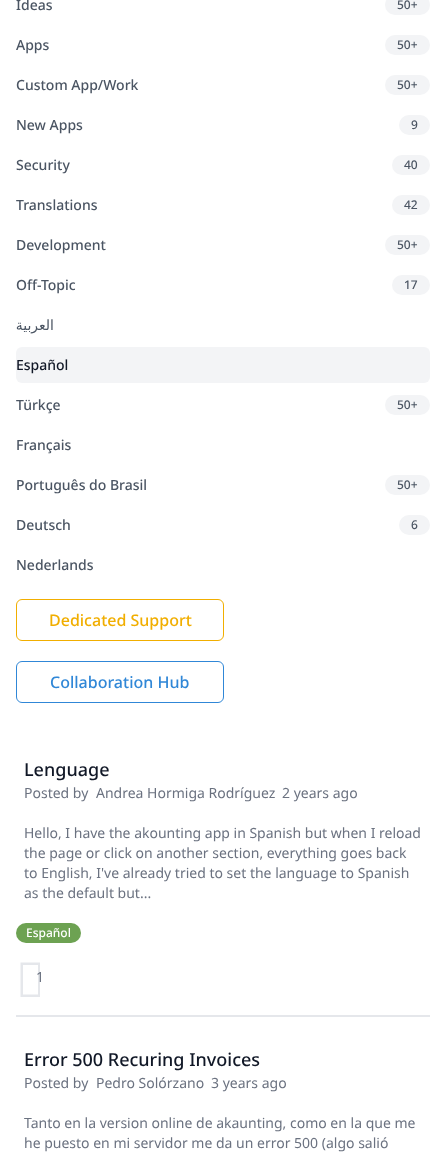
async function draw(canvas) {
  canvas.width = 446
  canvas.height = 1164
  const ctx = canvas.getContext('2d')
  ctx.miterLimit = 4
  ctx.fontKerning = 'normal'

  ctx.fillStyle = '#fff'
  ctx.fillRect(0, 0, 446, 1164)
  ctx.font = '500 14px Noto Sans'
  ctx.fillStyle = '#4b5563'
  ctx.fillText('Ideas', 16, 10)
  ctx.fillStyle = '#f3f4f6'
  ctx.beginPath()
  ctx.roundRect(385, -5, 45, 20, 10)
  ctx.fill()
  ctx.font = '500 12px Noto Sans'
  ctx.fillStyle = '#4b5563'
  ctx.fillText('50+', 397, 9)
  ctx.font = '500 14px Noto Sans'
  ctx.fillText('Apps', 16, 50)
  ctx.fillStyle = '#f3f4f6'
  ctx.beginPath()
  ctx.roundRect(385, 35, 45, 20, 10)
  ctx.fill()
  ctx.font = '500 12px Noto Sans'
  ctx.fillStyle = '#4b5563'
  ctx.fillText('50+', 397, 49)
  ctx.font = '500 14px Noto Sans'
  ctx.fillText('Custom App/Work', 16, 90)
  ctx.fillStyle = '#f3f4f6'
  ctx.beginPath()
  ctx.roundRect(385, 75, 45, 20, 10)
  ctx.fill()
  ctx.font = '500 12px Noto Sans'
  ctx.fillStyle = '#4b5563'
  ctx.fillText('50+', 397, 89)
  ctx.font = '500 14px Noto Sans'
  ctx.fillText('New Apps', 16, 130)
  ctx.fillStyle = '#f3f4f6'
  ctx.beginPath()
  ctx.roundRect(399, 115, 31, 20, 10)
  ctx.fill()
  ctx.font = '500 12px Noto Sans'
  ctx.fillStyle = '#4b5563'
  ctx.fillText('9', 411, 129)
  ctx.font = '500 14px Noto Sans'
  ctx.fillText('Security', 16, 170)
  ctx.fillStyle = '#f3f4f6'
  ctx.beginPath()
  ctx.roundRect(392, 155, 38, 20, 10)
  ctx.fill()
  ctx.font = '500 12px Noto Sans'
  ctx.fillStyle = '#4b5563'
  ctx.fillText('40', 404, 169)
  ctx.font = '500 14px Noto Sans'
  ctx.fillText('Translations', 16, 210)
  ctx.fillStyle = '#f3f4f6'
  ctx.beginPath()
  ctx.roundRect(392, 195, 38, 20, 10)
  ctx.fill()
  ctx.font = '500 12px Noto Sans'
  ctx.fillStyle = '#4b5563'
  ctx.fillText('42', 404, 209)
  ctx.font = '500 14px Noto Sans'
  ctx.fillText('Development', 16, 250)
  ctx.fillStyle = '#f3f4f6'
  ctx.beginPath()
  ctx.roundRect(385, 235, 45, 20, 10)
  ctx.fill()
  ctx.font = '500 12px Noto Sans'
  ctx.fillStyle = '#4b5563'
  ctx.fillText('50+', 397, 249)
  ctx.font = '500 14px Noto Sans'
  ctx.fillText('Off-Topic', 16, 290)
  ctx.fillStyle = '#f3f4f6'
  ctx.beginPath()
  ctx.roundRect(392, 275, 38, 20, 10)
  ctx.fill()
  ctx.font = '500 12px Noto Sans'
  ctx.fillStyle = '#4b5563'
  ctx.fillText('17', 404, 289)
  ctx.direction = 'rtl'
  ctx.font = '14px DejaVu Sans'
  ctx.fillText('العربية', 54, 330)
  ctx.fillStyle = '#f3f4f6'
  ctx.beginPath()
  ctx.roundRect(16, 347, 414, 36, 6)
  ctx.fill()
  ctx.direction = 'ltr'
  ctx.font = '500 14px Noto Sans'
  ctx.fillStyle = '#111827'
  ctx.fillText('Español', 16, 370)
  ctx.fillStyle = '#4b5563'
  ctx.fillText('Türkçe', 16, 410)
  ctx.fillStyle = '#f3f4f6'
  ctx.beginPath()
  ctx.roundRect(385, 395, 45, 20, 10)
  ctx.fill()
  ctx.font = '500 12px Noto Sans'
  ctx.fillStyle = '#4b5563'
  ctx.fillText('50+', 397, 409)
  ctx.font = '500 14px Noto Sans'
  ctx.fillText('Français', 16, 450)
  ctx.fillText('Português do Brasil', 16, 490)
  ctx.fillStyle = '#f3f4f6'
  ctx.beginPath()
  ctx.roundRect(385, 475, 45, 20, 10)
  ctx.fill()
  ctx.font = '500 12px Noto Sans'
  ctx.fillStyle = '#4b5563'
  ctx.fillText('50+', 397, 489)
  ctx.font = '500 14px Noto Sans'
  ctx.fillText('Deutsch', 16, 530)
  ctx.fillStyle = '#f3f4f6'
  ctx.beginPath()
  ctx.roundRect(399, 515, 31, 20, 10)
  ctx.fill()
  ctx.font = '500 12px Noto Sans'
  ctx.fillStyle = '#4b5563'
  ctx.fillText('6', 411, 529)
  ctx.font = '500 14px Noto Sans'
  ctx.fillText('Nederlands', 16, 570)
  ctx.beginPath()
  ctx.roundRect(16.5, 599.5, 207, 41, 5.5)
  ctx.strokeStyle = '#f1ae00'
  ctx.stroke()
  ctx.font = '500 16px Noto Sans'
  ctx.fillStyle = '#f1ae00'
  ctx.fillText('Dedicated Support', 49, 626)
  ctx.beginPath()
  ctx.roundRect(16.5, 661.5, 207, 41, 5.5)
  ctx.strokeStyle = '#3087d7'
  ctx.stroke()
  ctx.fillStyle = '#3087d7'
  ctx.fillText('Collaboration Hub', 50, 688)
  ctx.fillStyle = '#e5e7eb'
  ctx.fillRect(16, 1015, 414, 2)
  ctx.font = '500 18px Noto Sans'
  ctx.fillStyle = '#111827'
  ctx.fillText('Lenguage', 24, 776)
  ctx.font = '14px Noto Sans'
  ctx.fillStyle = '#6b7280'
  ctx.fillText('Posted by', 24, 798)
  ctx.fillText('Andrea Hormiga Rodríguez', 96, 798)
  ctx.fillText('2 years ago', 282, 798)
  ctx.fillText('Hello, I have the akounting app in Spanish but when I reload', 24, 838)
  ctx.fillText('the page or click on another section, everything goes back', 24, 858)
  ctx.fillText('to English, I\'ve already tried to set the language to Spanish', 24, 878)
  ctx.fillText('as the default but...', 24, 898)
  ctx.fillStyle = '#6da252'
  ctx.beginPath()
  ctx.roundRect(16, 923, 65, 20, 10)
  ctx.fill()
  ctx.font = '500 12px Noto Sans'
  ctx.fillStyle = '#fff'
  ctx.fillText('Español', 26, 937)
  ctx.fillStyle = '#e5e7eb'
  ctx.beginPath()
  ctx.moveTo(20.5, 997)
  ctx.lineTo(20.5, 962.5)
  ctx.lineTo(40, 962.5)
  ctx.lineTo(40, 997)
  ctx.closePath()
  ctx.moveTo(23, 994.5)
  ctx.lineTo(38, 994.5)
  ctx.lineTo(38, 965)
  ctx.lineTo(23, 965)
  ctx.closePath()
  ctx.fill()
  ctx.font = '14px Noto Sans'
  ctx.fillStyle = '#6b7280'
  ctx.fillText('1', 36, 982)
  ctx.font = '500 18px Noto Sans'
  ctx.fillStyle = '#111827'
  ctx.fillText('Error 500 Recuring Invoices', 24, 1066)
  ctx.font = '14px Noto Sans'
  ctx.fillStyle = '#6b7280'
  ctx.fillText('Posted by', 24, 1088)
  ctx.fillText('Pedro Solórzano', 96, 1088)
  ctx.fillText('3 years ago', 211, 1088)
  ctx.fillText('Tanto en la version online de akaunting, como en la que me', 24, 1128)
  ctx.fillText('he puesto en mi servidor me da un error 500 (algo salió', 24, 1148)
}

draw(document.querySelector('canvas'))
